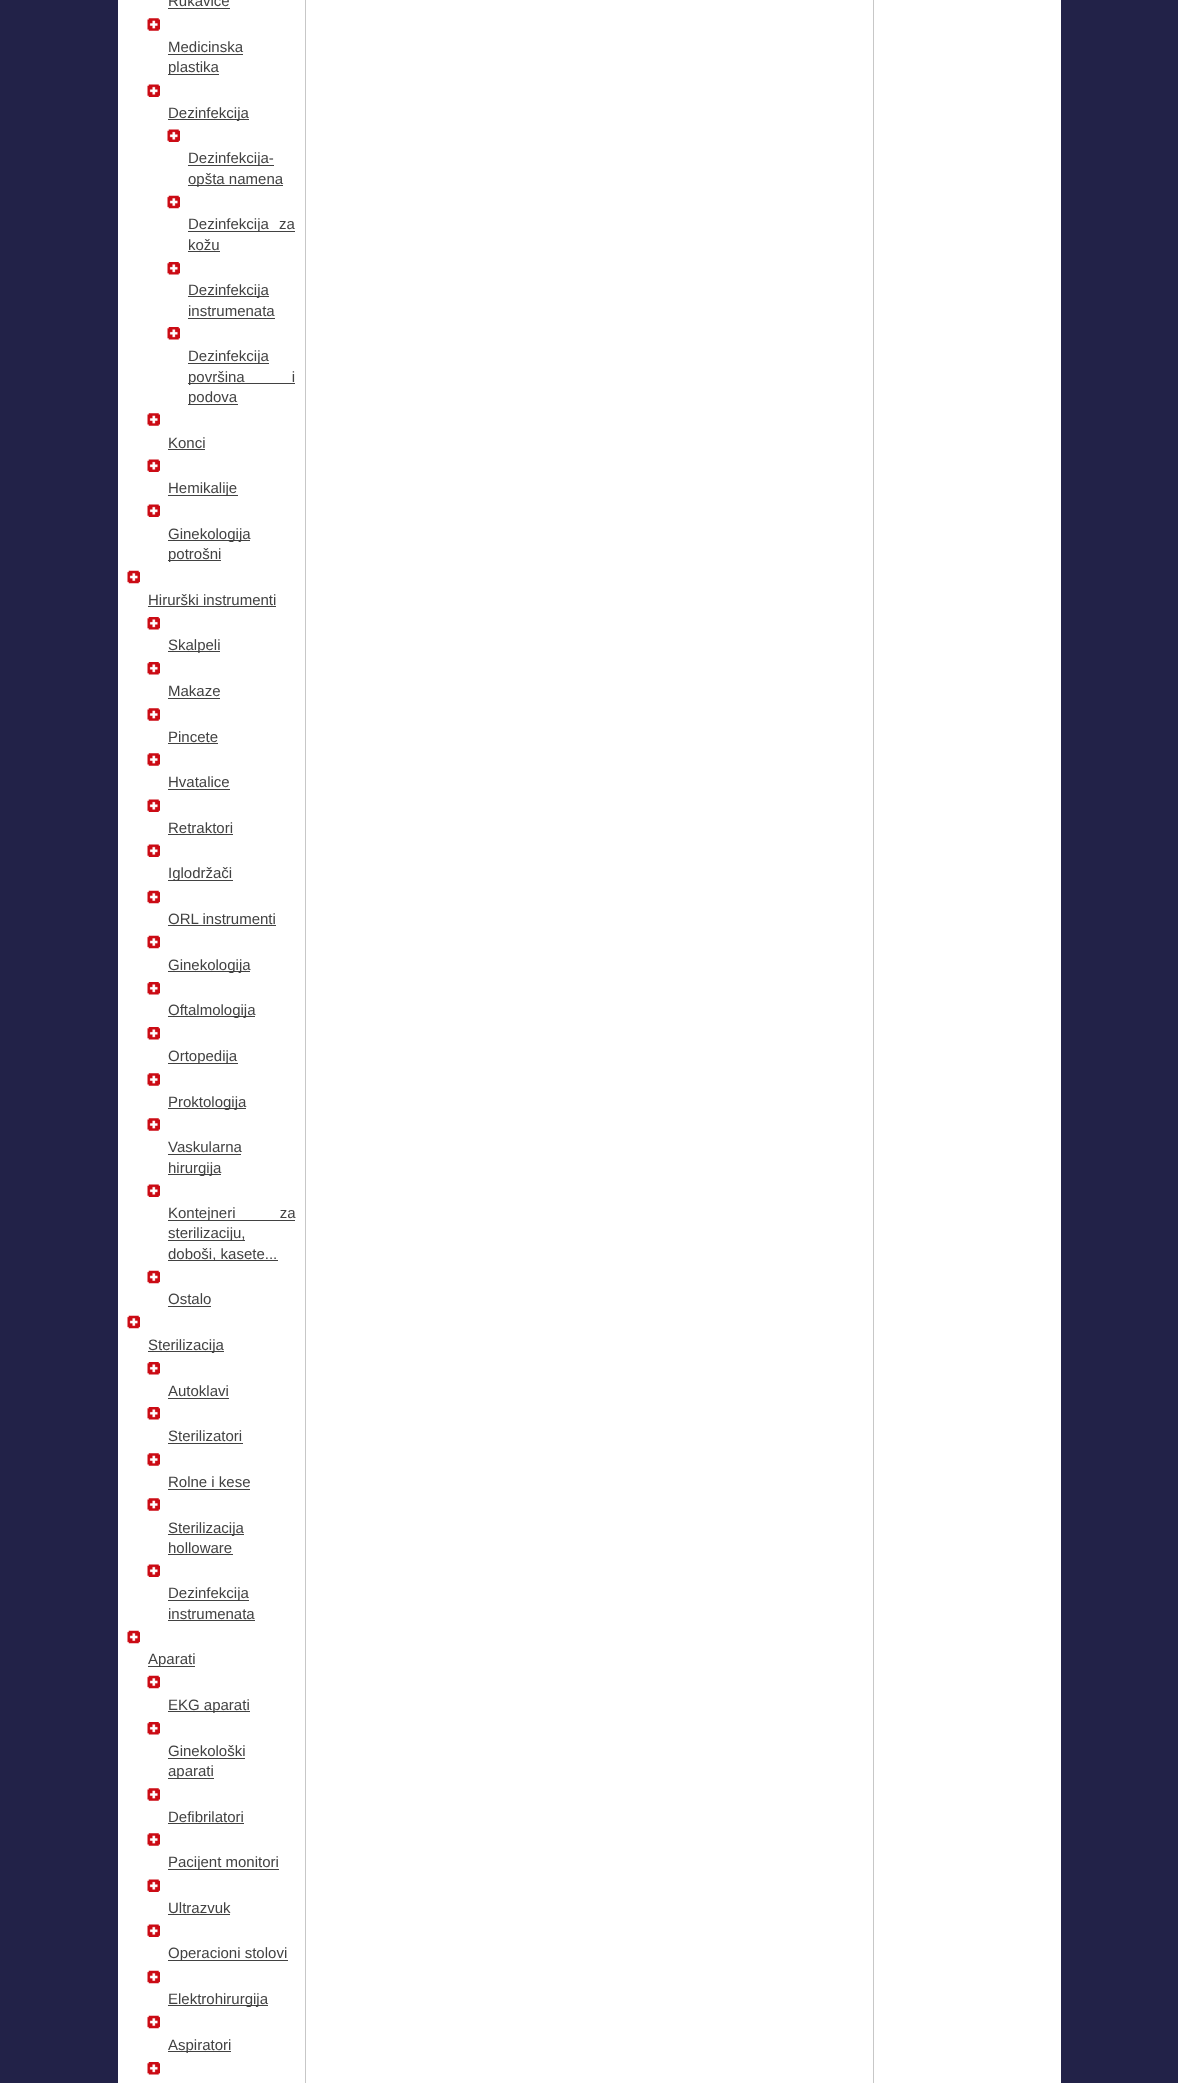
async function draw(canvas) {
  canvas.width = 1178
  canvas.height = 2083
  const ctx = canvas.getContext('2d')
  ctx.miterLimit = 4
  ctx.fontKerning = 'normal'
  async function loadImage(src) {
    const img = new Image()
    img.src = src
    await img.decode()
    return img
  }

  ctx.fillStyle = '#222248'
  ctx.fillRect(0, 0, 1178, 2083)
  ctx.fillStyle = '#fff'
  ctx.fillRect(118, 0, 943, 2083)
  ctx.fillStyle = '#c7c7c7'
  ctx.fillRect(305, 0, 1, 2083)
  ctx.font = '15px Liberation Sans'
  ctx.fillStyle = '#424242'
  ctx.fillText('Rukavice', 168, 6)
  ctx.fillRect(168, 8, 62, 1)
  ctx.drawImage(await loadImage('image0.png'), 147, 18, 13, 13)
  ctx.fillText('Medicinska', 168, 52)
  ctx.fillRect(168, 54, 75, 1)
  ctx.fillRect(168, 74, 51, 1)
  ctx.fillText('plastika', 168, 72)
  ctx.drawImage(await loadImage('image1.png'), 147, 84, 13, 13)
  ctx.fillRect(168, 119, 81, 1)
  ctx.fillText('Dezinfekcija', 168, 118)
  ctx.drawImage(await loadImage('image1.png'), 167, 129, 13, 13)
  ctx.fillRect(188, 165, 86, 1)
  ctx.fillText('Dezinfekcija-', 188, 163)
  ctx.fillRect(188, 185, 95, 1)
  ctx.fillText('opšta namena', 188, 184)
  ctx.drawImage(await loadImage('image2.png'), 167, 195, 13, 14)
  ctx.fillRect(188, 231, 107, 1)
  ctx.wordSpacing = '6px'
  ctx.fillText('Dezinfekcija za', 188, 229)
  ctx.wordSpacing = '0px'
  ctx.fillText('kožu', 188, 250)
  ctx.fillRect(188, 251, 32, 1)
  ctx.drawImage(await loadImage('image3.png'), 167, 262, 13, 13)
  ctx.fillRect(188, 296, 81, 1)
  ctx.fillText('Dezinfekcija', 188, 295)
  ctx.fillText('instrumenata', 188, 316)
  ctx.fillRect(188, 318, 87, 1)
  ctx.drawImage(await loadImage('image3.png'), 167, 327, 13, 13)
  ctx.fillRect(188, 363, 81, 1)
  ctx.fillText('Dezinfekcija', 188, 361)
  ctx.fillRect(188, 383, 107, 1)
  ctx.wordSpacing = '43px'
  ctx.fillText('površina i', 188, 382)
  ctx.fillRect(188, 404, 50, 1)
  ctx.wordSpacing = '0px'
  ctx.fillText('podova', 188, 402)
  ctx.drawImage(await loadImage('image0.png'), 147, 413, 13, 13)
  ctx.fillText('Konci', 168, 448)
  ctx.fillRect(168, 449, 37, 1)
  ctx.drawImage(await loadImage('image1.png'), 147, 459, 13, 13)
  ctx.fillRect(168, 495, 70, 1)
  ctx.fillText('Hemikalije', 168, 493)
  ctx.drawImage(await loadImage('image1.png'), 147, 504, 13, 13)
  ctx.fillRect(168, 540, 82, 1)
  ctx.fillText('Ginekologija', 168, 539)
  ctx.fillRect(168, 560, 53, 1)
  ctx.fillText('potrošni', 168, 559)
  ctx.drawImage(await loadImage('image2.png'), 127, 570, 13, 14)
  ctx.fillText('Hirurški instrumenti', 148, 605)
  ctx.fillRect(148, 606, 128, 1)
  ctx.drawImage(await loadImage('image3.png'), 147, 617, 13, 13)
  ctx.fillRect(168, 651, 52, 1)
  ctx.fillText('Skalpeli', 168, 650)
  ctx.drawImage(await loadImage('image3.png'), 147, 662, 13, 13)
  ctx.fillText('Makaze', 168, 696)
  ctx.fillRect(168, 698, 52, 1)
  ctx.drawImage(await loadImage('image0.png'), 147, 708, 13, 13)
  ctx.fillText('Pincete', 168, 742)
  ctx.fillRect(168, 743, 50, 1)
  ctx.drawImage(await loadImage('image0.png'), 147, 753, 13, 13)
  ctx.fillText('Hvatalice', 168, 787)
  ctx.fillRect(168, 789, 62, 1)
  ctx.drawImage(await loadImage('image1.png'), 147, 799, 13, 13)
  ctx.fillText('Retraktori', 168, 833)
  ctx.fillRect(168, 834, 65, 1)
  ctx.drawImage(await loadImage('image4.png'), 147, 844, 13, 13)
  ctx.fillRect(168, 880, 65, 1)
  ctx.fillText('Iglodržači', 168, 878)
  ctx.drawImage(await loadImage('image2.png'), 147, 890, 13, 14)
  ctx.fillText('ORL instrumenti', 168, 924)
  ctx.fillRect(168, 925, 108, 1)
  ctx.drawImage(await loadImage('image2.png'), 147, 935, 13, 14)
  ctx.fillRect(168, 971, 82, 1)
  ctx.fillText('Ginekologija', 168, 970)
  ctx.drawImage(await loadImage('image3.png'), 147, 982, 13, 13)
  ctx.fillRect(168, 1016, 87, 1)
  ctx.fillText('Oftalmologija', 168, 1015)
  ctx.drawImage(await loadImage('image3.png'), 147, 1027, 13, 13)
  ctx.fillRect(168, 1063, 70, 1)
  ctx.fillText('Ortopedija', 168, 1061)
  ctx.drawImage(await loadImage('image0.png'), 147, 1073, 13, 13)
  ctx.fillRect(168, 1108, 78, 1)
  ctx.fillText('Proktologija', 168, 1107)
  ctx.drawImage(await loadImage('image0.png'), 147, 1118, 13, 13)
  ctx.fillText('Vaskularna', 168, 1152)
  ctx.fillRect(168, 1154, 73, 1)
  ctx.fillRect(168, 1174, 53, 1)
  ctx.fillText('hirurgija', 168, 1173)
  ctx.drawImage(await loadImage('image1.png'), 147, 1184, 13, 13)
  ctx.fillRect(168, 1220, 127, 1)
  ctx.wordSpacing = '40px'
  ctx.fillText('Kontejneri za', 168, 1218)
  ctx.fillRect(168, 1240, 77, 1)
  ctx.wordSpacing = '0px'
  ctx.fillText('sterilizaciju,', 168, 1238)
  ctx.fillRect(168, 1260, 110, 1)
  ctx.fillText('doboši, kasete...', 168, 1259)
  ctx.drawImage(await loadImage('image2.png'), 147, 1270, 13, 14)
  ctx.fillText('Ostalo', 168, 1304)
  ctx.fillRect(168, 1306, 43, 1)
  ctx.drawImage(await loadImage('image2.png'), 127, 1315, 13, 14)
  ctx.fillRect(148, 1351, 76, 1)
  ctx.fillText('Sterilizacija', 148, 1350)
  ctx.drawImage(await loadImage('image3.png'), 147, 1362, 13, 13)
  ctx.fillText('Autoklavi', 168, 1396)
  ctx.fillRect(168, 1398, 61, 1)
  ctx.drawImage(await loadImage('image3.png'), 147, 1407, 13, 13)
  ctx.fillText('Sterilizatori', 168, 1441)
  ctx.fillRect(168, 1443, 75, 1)
  ctx.drawImage(await loadImage('image0.png'), 147, 1453, 13, 13)
  ctx.fillText('Rolne i kese', 168, 1487)
  ctx.fillRect(168, 1489, 82, 1)
  ctx.drawImage(await loadImage('image0.png'), 147, 1498, 13, 13)
  ctx.fillRect(168, 1534, 76, 1)
  ctx.fillText('Sterilizacija', 168, 1533)
  ctx.fillText('holloware', 168, 1553)
  ctx.fillRect(168, 1554, 65, 1)
  ctx.drawImage(await loadImage('image1.png'), 147, 1564, 13, 13)
  ctx.fillRect(168, 1600, 81, 1)
  ctx.fillText('Dezinfekcija', 168, 1598)
  ctx.fillText('instrumenata', 168, 1619)
  ctx.fillRect(168, 1620, 87, 1)
  ctx.drawImage(await loadImage('image2.png'), 127, 1630, 13, 14)
  ctx.fillRect(148, 1666, 47, 1)
  ctx.fillText('Aparati', 148, 1664)
  ctx.drawImage(await loadImage('image2.png'), 147, 1675, 13, 14)
  ctx.fillRect(168, 1711, 82, 1)
  ctx.fillText('EKG aparati', 168, 1710)
  ctx.drawImage(await loadImage('image3.png'), 147, 1722, 13, 13)
  ctx.fillText('Ginekološki', 168, 1756)
  ctx.fillRect(168, 1758, 77, 1)
  ctx.fillRect(168, 1778, 46, 1)
  ctx.fillText('aparati', 168, 1776)
  ctx.drawImage(await loadImage('image0.png'), 147, 1788, 13, 13)
  ctx.fillText('Defibrilatori', 168, 1822)
  ctx.fillRect(168, 1823, 76, 1)
  ctx.drawImage(await loadImage('image0.png'), 147, 1833, 13, 13)
  ctx.fillRect(168, 1869, 111, 1)
  ctx.fillText('Pacijent monitori', 168, 1867)
  ctx.drawImage(await loadImage('image1.png'), 147, 1879, 13, 13)
  ctx.fillText('Ultrazvuk', 168, 1913)
  ctx.fillRect(168, 1914, 62, 1)
  ctx.drawImage(await loadImage('image4.png'), 147, 1924, 13, 13)
  ctx.fillRect(168, 1960, 120, 1)
  ctx.fillText('Operacioni stolovi', 168, 1958)
  ctx.drawImage(await loadImage('image2.png'), 147, 1970, 13, 14)
  ctx.fillRect(168, 2005, 100, 1)
  ctx.fillText('Elektrohirurgija', 168, 2004)
  ctx.drawImage(await loadImage('image2.png'), 147, 2015, 13, 14)
  ctx.fillRect(168, 2051, 63, 1)
  ctx.fillText('Aspiratori', 168, 2050)
  ctx.drawImage(await loadImage('image3.png'), 147, 2062, 13, 13)
  ctx.fillStyle = '#c7c7c7'
  ctx.fillRect(873, 0, 1, 2083)
}

draw(document.querySelector('canvas'))
